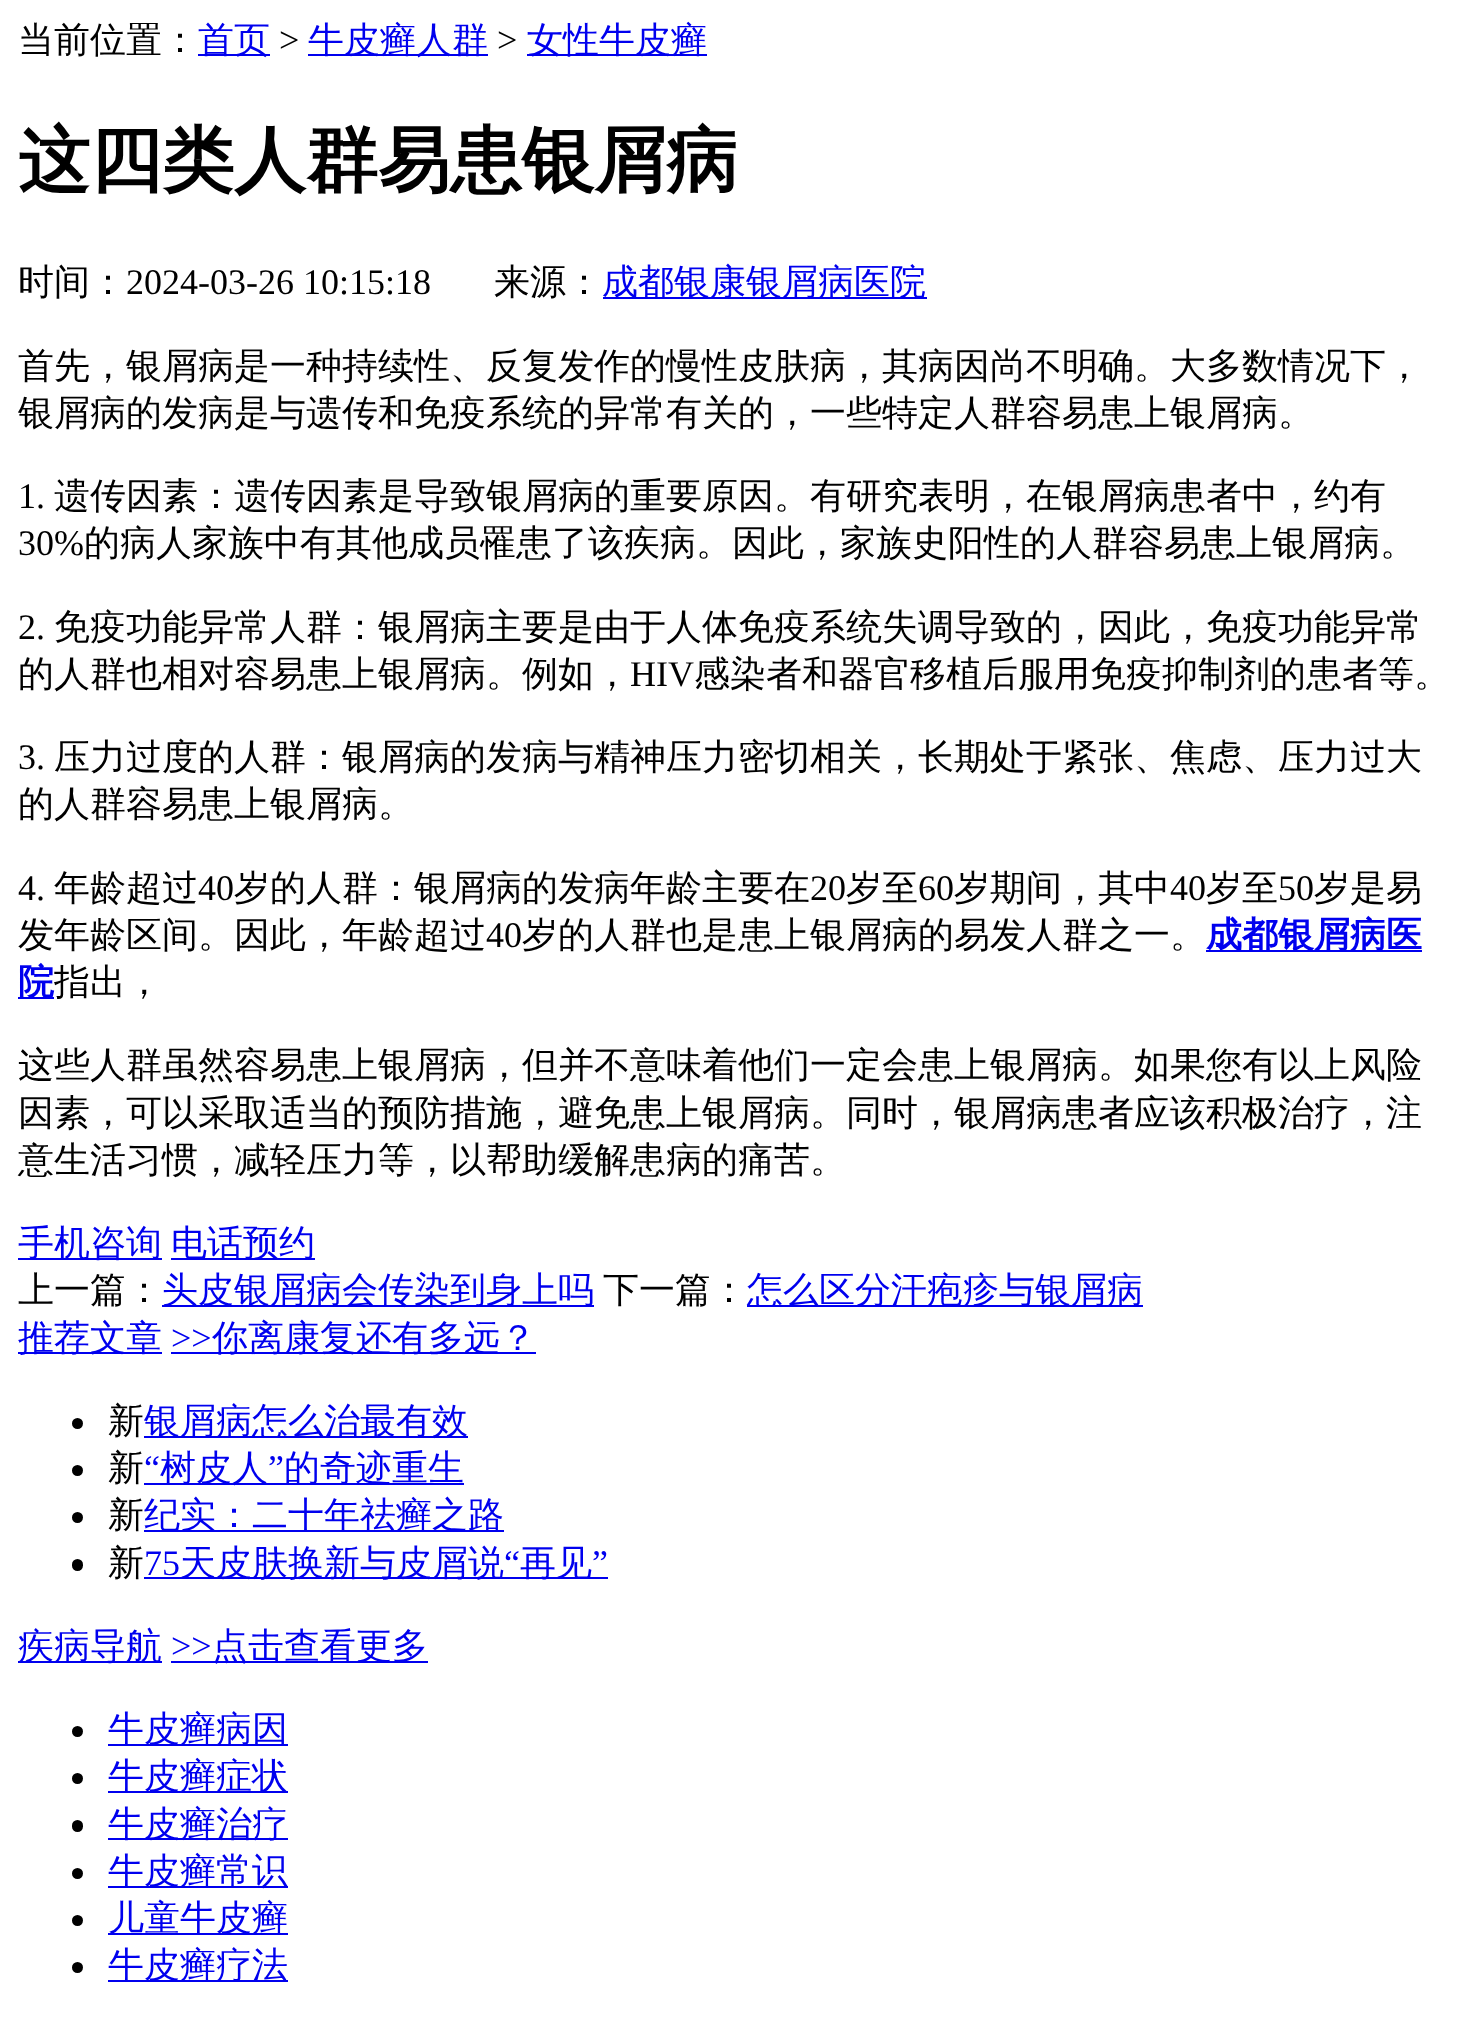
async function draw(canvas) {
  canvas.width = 1468
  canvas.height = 2037
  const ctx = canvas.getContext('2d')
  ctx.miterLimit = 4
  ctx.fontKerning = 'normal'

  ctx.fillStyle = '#fff'
  ctx.fillRect(0, 0, 1468, 2037)
  ctx.font = '500 36px WenQuanYi Zen Hei'
  ctx.fillStyle = '#000'
  ctx.fillText('当前位置：', 18, 52)
  ctx.fillStyle = '#00e'
  ctx.fillRect(198, 54, 72, 2)
  ctx.fillText('首页', 198, 52)
  ctx.font = '36px Liberation Serif'
  ctx.fillStyle = '#000'
  ctx.fillText('>', 279, 52)
  ctx.fillStyle = '#00e'
  ctx.fillRect(308, 54, 180, 2)
  ctx.font = '500 36px WenQuanYi Zen Hei'
  ctx.fillText('牛皮癣人群', 308, 52)
  ctx.font = '36px Liberation Serif'
  ctx.fillStyle = '#000'
  ctx.fillText('>', 497, 52)
  ctx.fillStyle = '#00e'
  ctx.fillRect(527, 54, 180, 2)
  ctx.font = '500 36px WenQuanYi Zen Hei'
  ctx.fillText('女性牛皮癣', 527, 52)
  ctx.font = 'bold 72px WenQuanYi Zen Hei'
  ctx.fillStyle = '#000'
  ctx.fillText('这四类人群易患银屑病', 18, 185)
  ctx.font = '500 36px WenQuanYi Zen Hei'
  ctx.fillText('时间：', 18, 294)
  ctx.font = '36px Liberation Serif'
  ctx.fillText('2024-03-26 10:15:18', 126, 294)
  ctx.font = '500 36px WenQuanYi Zen Hei'
  ctx.fillText('来源：', 494, 294)
  ctx.fillStyle = '#00e'
  ctx.fillRect(603, 297, 324, 2)
  ctx.fillText('成都银康银屑病医院', 602, 294)
  ctx.fillStyle = '#000'
  ctx.fillText('首先，银屑病是一种持续性、反复发作的慢性皮肤病，其病因尚不明确。大多数情况下，', 18, 378)
  ctx.fillText('银屑病的发病是与遗传和免疫系统的异常有关的，一些特定人群容易患上银屑病。', 18, 425)
  ctx.font = '36px Liberation Serif'
  ctx.fillText('1.', 18, 508)
  ctx.font = '500 36px WenQuanYi Zen Hei'
  ctx.fillText('遗传因素：遗传因素是导致银屑病的重要原因。有研究表明，在银屑病患者中，约有', 54, 508)
  ctx.font = '36px Liberation Serif'
  ctx.fillText('30%', 18, 555)
  ctx.font = '500 36px WenQuanYi Zen Hei'
  ctx.fillText('的病人家族中有其他成员罹患了该疾病。因此，家族史阳性的人群容易患上银屑病。', 84, 555)
  ctx.font = '36px Liberation Serif'
  ctx.fillText('2.', 18, 639)
  ctx.font = '500 36px WenQuanYi Zen Hei'
  ctx.fillText('免疫功能异常人群：银屑病主要是由于人体免疫系统失调导致的，因此，免疫功能异常', 54, 639)
  ctx.fillText('的人群也相对容易患上银屑病。例如，', 18, 686)
  ctx.font = '36px Liberation Serif'
  ctx.fillText('HIV', 630, 686)
  ctx.font = '500 36px WenQuanYi Zen Hei'
  ctx.fillText('感染者和器官移植后服用免疫抑制剂的患者等。', 694, 686)
  ctx.font = '36px Liberation Serif'
  ctx.fillText('3.', 18, 769)
  ctx.font = '500 36px WenQuanYi Zen Hei'
  ctx.fillText('压力过度的人群：银屑病的发病与精神压力密切相关，长期处于紧张、焦虑、压力过大', 54, 769)
  ctx.fillText('的人群容易患上银屑病。', 18, 816)
  ctx.font = '36px Liberation Serif'
  ctx.fillText('4.', 18, 900)
  ctx.font = '500 36px WenQuanYi Zen Hei'
  ctx.fillText('年龄超过', 54, 900)
  ctx.font = '36px Liberation Serif'
  ctx.fillText('40', 198, 900)
  ctx.font = '500 36px WenQuanYi Zen Hei'
  ctx.fillText('岁的人群：银屑病的发病年龄主要在', 234, 900)
  ctx.font = '36px Liberation Serif'
  ctx.fillText('20', 810, 900)
  ctx.font = '500 36px WenQuanYi Zen Hei'
  ctx.fillText('岁至', 846, 900)
  ctx.font = '36px Liberation Serif'
  ctx.fillText('60', 918, 900)
  ctx.font = '500 36px WenQuanYi Zen Hei'
  ctx.fillText('岁期间，其中', 954, 900)
  ctx.font = '36px Liberation Serif'
  ctx.fillText('40', 1170, 900)
  ctx.font = '500 36px WenQuanYi Zen Hei'
  ctx.fillText('岁至', 1206, 900)
  ctx.font = '36px Liberation Serif'
  ctx.fillText('50', 1278, 900)
  ctx.font = '500 36px WenQuanYi Zen Hei'
  ctx.fillText('岁是易', 1314, 900)
  ctx.fillText('发年龄区间。因此，年龄超过', 18, 947)
  ctx.font = '36px Liberation Serif'
  ctx.fillText('40', 486, 947)
  ctx.font = '500 36px WenQuanYi Zen Hei'
  ctx.fillText('岁的人群也是患上银屑病的易发人群之一。', 522, 947)
  ctx.fillStyle = '#00e'
  ctx.fillRect(1206, 950, 216, 2)
  ctx.font = 'bold 36px WenQuanYi Zen Hei'
  ctx.fillText('成都银屑病医', 1206, 947)
  ctx.fillRect(18, 997, 36, 2)
  ctx.fillText('院', 18, 994)
  ctx.font = '500 36px WenQuanYi Zen Hei'
  ctx.fillStyle = '#000'
  ctx.fillText('指出，', 54, 994)
  ctx.fillText('这些人群虽然容易患上银屑病，但并不意味着他们一定会患上银屑病。如果您有以上风险', 18, 1077)
  ctx.fillText('因素，可以采取适当的预防措施，避免患上银屑病。同时，银屑病患者应该积极治疗，注', 18, 1125)
  ctx.fillText('意生活习惯，减轻压力等，以帮助缓解患病的痛苦。', 18, 1172)
  ctx.fillStyle = '#00e'
  ctx.fillRect(18, 1258, 144, 2)
  ctx.fillText('手机咨询', 18, 1255)
  ctx.fillRect(171, 1258, 144, 2)
  ctx.fillText('电话预约', 171, 1255)
  ctx.fillStyle = '#000'
  ctx.fillText('上一篇：', 18, 1302)
  ctx.fillStyle = '#00e'
  ctx.fillRect(162, 1305, 432, 2)
  ctx.fillText('头皮银屑病会传染到身上吗', 162, 1302)
  ctx.fillStyle = '#000'
  ctx.fillText('下一篇：', 603, 1302)
  ctx.fillStyle = '#00e'
  ctx.fillRect(747, 1305, 396, 2)
  ctx.fillText('怎么区分汗疱疹与银屑病', 747, 1302)
  ctx.fillRect(18, 1352, 144, 2)
  ctx.fillText('推荐文章', 18, 1350)
  ctx.font = '36px Liberation Serif'
  ctx.fillText('>>', 171, 1350)
  ctx.fillRect(171, 1352, 365, 2)
  ctx.font = '500 36px WenQuanYi Zen Hei'
  ctx.fillText('你离康复还有多远？', 212, 1350)
  ctx.fillStyle = '#000'
  ctx.beginPath()
  ctx.arc(77.5, 1423.5, 5.5, 0, 2 * Math.PI)
  ctx.fill()
  ctx.fillText('新', 108, 1433)
  ctx.fillStyle = '#00e'
  ctx.fillRect(144, 1436, 324, 2)
  ctx.fillText('银屑病怎么治最有效', 144, 1433)
  ctx.fillStyle = '#000'
  ctx.fillText('新', 108, 1480)
  ctx.font = '36px Liberation Serif'
  ctx.fillStyle = '#00e'
  ctx.fillText('“', 144, 1480)
  ctx.fillRect(144, 1483, 320, 2)
  ctx.font = '500 36px WenQuanYi Zen Hei'
  ctx.fillText('树皮人', 160, 1480)
  ctx.font = '36px Liberation Serif'
  ctx.fillText('”', 268, 1480)
  ctx.font = '500 36px WenQuanYi Zen Hei'
  ctx.fillText('的奇迹重生', 284, 1480)
  ctx.fillStyle = '#000'
  ctx.beginPath()
  ctx.arc(77.5, 1470.5, 5.5, 0, 2 * Math.PI)
  ctx.fill()
  ctx.beginPath()
  ctx.arc(77.5, 1517.5, 5.5, 0, 2 * Math.PI)
  ctx.fill()
  ctx.fillText('新', 108, 1527)
  ctx.fillStyle = '#00e'
  ctx.fillRect(144, 1530, 360, 2)
  ctx.fillText('纪实：二十年祛癣之路', 144, 1527)
  ctx.fillStyle = '#000'
  ctx.fillText('新', 108, 1575)
  ctx.font = '36px Liberation Serif'
  ctx.fillStyle = '#00e'
  ctx.fillText('75', 144, 1575)
  ctx.fillRect(144, 1577, 464, 2)
  ctx.font = '500 36px WenQuanYi Zen Hei'
  ctx.fillText('天皮肤换新与皮屑说', 180, 1575)
  ctx.font = '36px Liberation Serif'
  ctx.fillText('“', 504, 1575)
  ctx.font = '500 36px WenQuanYi Zen Hei'
  ctx.fillText('再见', 520, 1575)
  ctx.font = '36px Liberation Serif'
  ctx.fillText('”', 592, 1575)
  ctx.fillStyle = '#000'
  ctx.beginPath()
  ctx.roundRect(72, 1559, 11, 12, 5.5)
  ctx.fill()
  ctx.fillStyle = '#00e'
  ctx.fillRect(18, 1661, 144, 2)
  ctx.font = '500 36px WenQuanYi Zen Hei'
  ctx.fillText('疾病导航', 18, 1658)
  ctx.font = '36px Liberation Serif'
  ctx.fillText('>>', 171, 1658)
  ctx.fillRect(171, 1661, 257, 2)
  ctx.font = '500 36px WenQuanYi Zen Hei'
  ctx.fillText('点击查看更多', 212, 1658)
  ctx.fillStyle = '#000'
  ctx.beginPath()
  ctx.arc(77.5, 1731.5, 5.5, 0, 2 * Math.PI)
  ctx.fill()
  ctx.fillStyle = '#00e'
  ctx.fillRect(108, 1744, 180, 2)
  ctx.fillText('牛皮癣病因', 108, 1741)
  ctx.fillStyle = '#000'
  ctx.beginPath()
  ctx.arc(77.5, 1778.5, 5.5, 0, 2 * Math.PI)
  ctx.fill()
  ctx.fillStyle = '#00e'
  ctx.fillRect(108, 1791, 180, 2)
  ctx.fillText('牛皮癣症状', 108, 1788)
  ctx.fillStyle = '#000'
  ctx.beginPath()
  ctx.roundRect(72, 1820, 11, 12, 5.5)
  ctx.fill()
  ctx.fillStyle = '#00e'
  ctx.fillRect(108, 1838, 180, 2)
  ctx.fillText('牛皮癣治疗', 108, 1836)
  ctx.fillStyle = '#000'
  ctx.beginPath()
  ctx.arc(77.5, 1873.5, 5.5, 0, 2 * Math.PI)
  ctx.fill()
  ctx.fillStyle = '#00e'
  ctx.fillRect(108, 1886, 180, 2)
  ctx.fillText('牛皮癣常识', 108, 1883)
  ctx.fillStyle = '#000'
  ctx.beginPath()
  ctx.arc(77.5, 1920.5, 5.5, 0, 2 * Math.PI)
  ctx.fill()
  ctx.fillStyle = '#00e'
  ctx.fillRect(108, 1933, 180, 2)
  ctx.fillText('儿童牛皮癣', 108, 1930)
  ctx.fillStyle = '#000'
  ctx.beginPath()
  ctx.arc(77.5, 1967.5, 5.5, 0, 2 * Math.PI)
  ctx.fill()
  ctx.fillStyle = '#00e'
  ctx.fillRect(108, 1980, 180, 2)
  ctx.fillText('牛皮癣疗法', 108, 1977)
}

draw(document.querySelector('canvas'))
